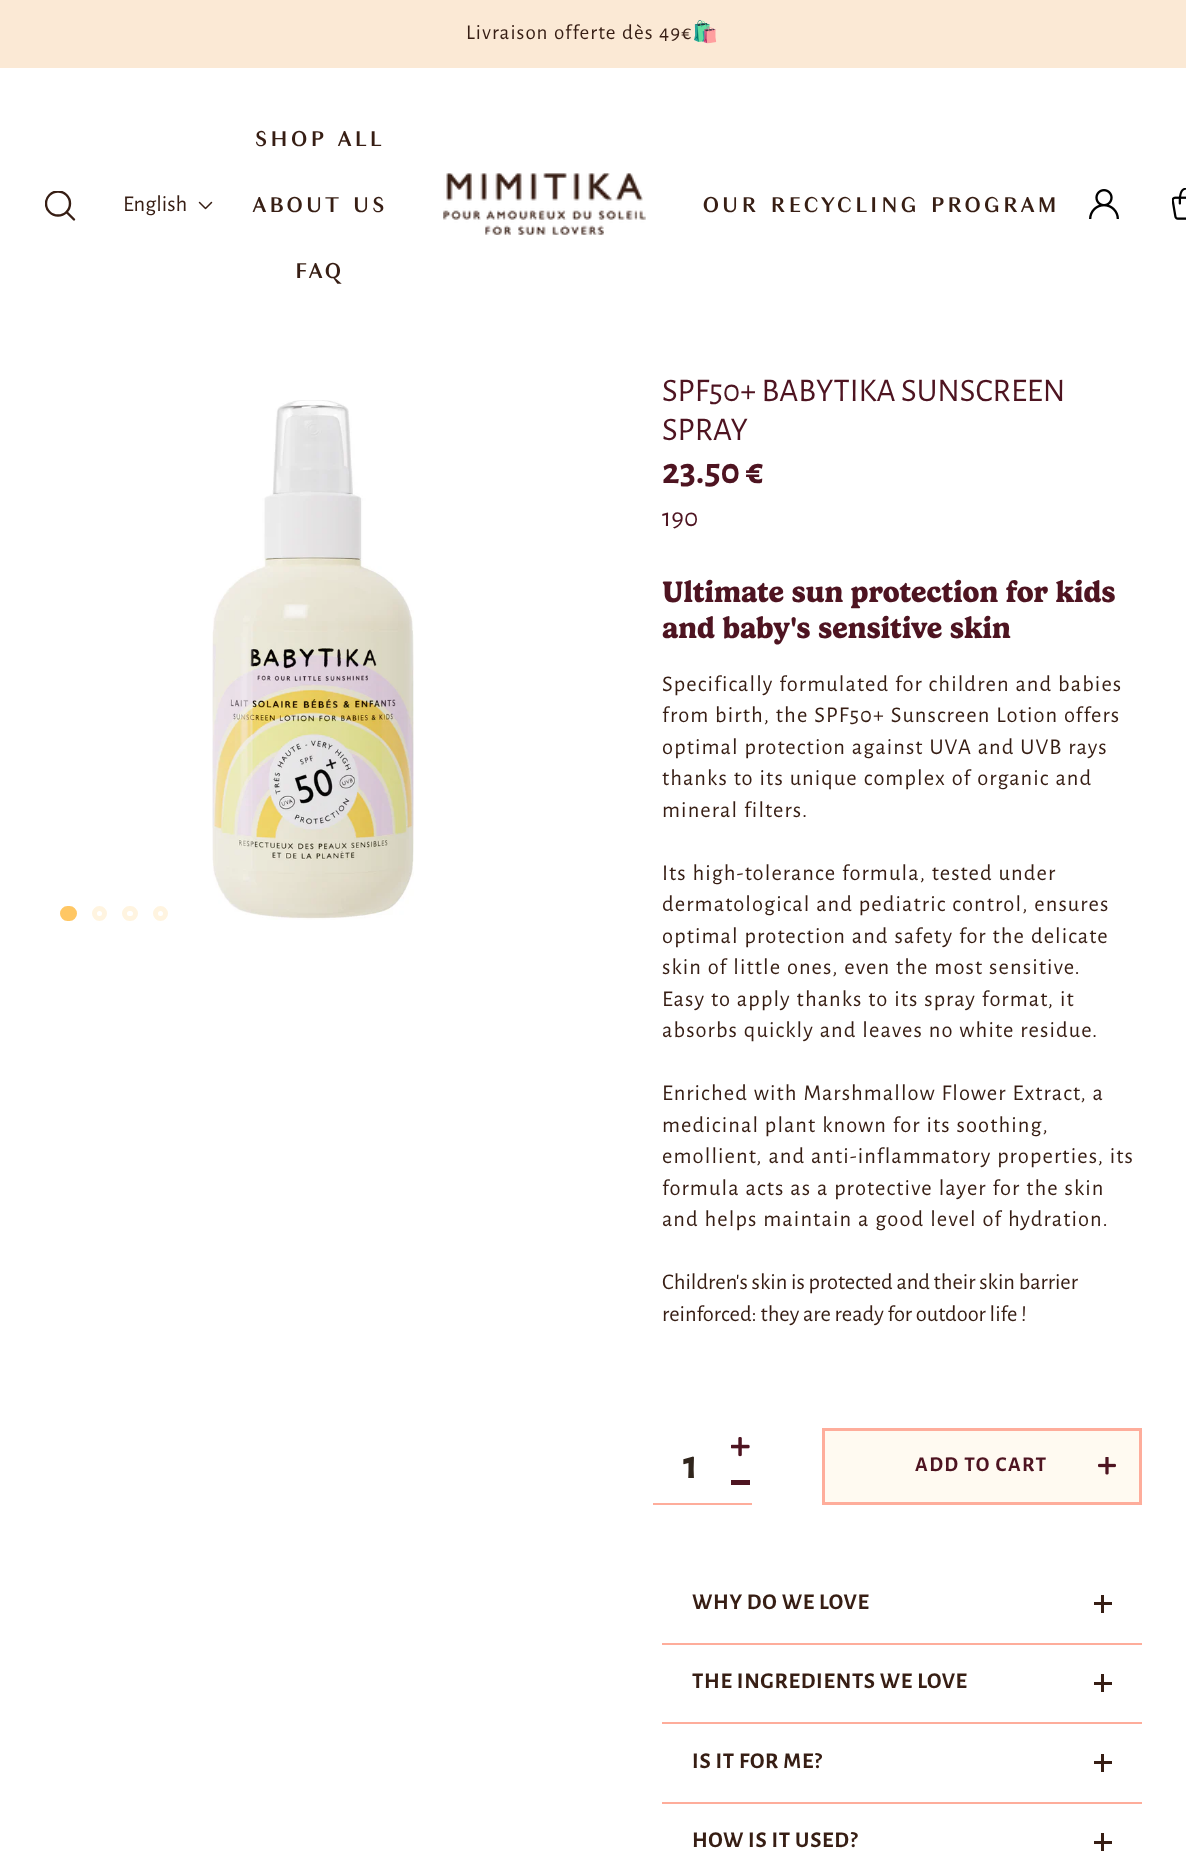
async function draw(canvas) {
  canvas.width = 1186
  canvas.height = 1871
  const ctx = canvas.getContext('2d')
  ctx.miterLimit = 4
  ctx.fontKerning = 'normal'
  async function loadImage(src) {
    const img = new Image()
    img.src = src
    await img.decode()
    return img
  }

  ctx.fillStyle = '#fff'
  ctx.fillRect(0, 0, 1186, 1871)
  ctx.fillStyle = '#fbe9d5'
  ctx.fillRect(0, 0, 1186, 68)
  ctx.letterSpacing = '1.05px'
  ctx.wordSpacing = '1px'
  ctx.font = '21.1px Alegreya Sans'
  ctx.fillStyle = '#371e14'
  ctx.fillText('Livraison offerte dès 49€', 466, 39)
  ctx.wordSpacing = '0px'
  ctx.font = '21.1px Noto Color Emoji'
  ctx.fillText('🛍️', 692, 39)
  ctx.save()
  ctx.beginPath()
  ctx.rect(45, 191, 30, 30)
  ctx.clip()
  ctx.beginPath()
  ctx.arc(58, 203.5, 12, 0, 2 * Math.PI)
  ctx.strokeStyle = '#371e14'
  ctx.lineWidth = 2.4
  ctx.stroke()
  ctx.restore()
  ctx.beginPath()
  ctx.moveTo(74, 219.5)
  ctx.lineTo(67, 212.5)
  ctx.strokeStyle = '#371e14'
  ctx.lineWidth = 2.4
  ctx.lineCap = 'round'
  ctx.stroke()
  ctx.letterSpacing = '0px'
  ctx.font = '22.5px Alegreya Sans'
  ctx.fillText('English', 123, 211)
  ctx.drawImage(await loadImage('image0.png'), 198, 201, 15, 9)
  ctx.letterSpacing = '1.5px'
  ctx.wordSpacing = '2px'
  ctx.font = '30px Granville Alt'
  ctx.fillText('SHOP ALL', 254, 146)
  ctx.fillText('ABOUT US', 252, 212)
  ctx.wordSpacing = '0px'
  ctx.fillText('FAQ', 294, 278)
  ctx.drawImage(await loadImage('image1.png'), 443, 173, 203, 62)
  ctx.wordSpacing = '2px'
  ctx.fillText('OUR RECYCLING PROGRAM', 702, 212)
  ctx.drawImage(await loadImage('image2.png'), 1089, 189, 30, 30)
  ctx.drawImage(await loadImage('image3.png'), 1172, 188, 14, 32)
  ctx.fillStyle = '#ffc764'
  ctx.beginPath()
  ctx.roundRect(62.5, 908.5, 12, 10, 5)
  ctx.fill()
  ctx.strokeStyle = '#ffc764'
  ctx.lineWidth = 5
  ctx.stroke()
  ctx.beginPath()
  ctx.arc(99.5, 913.5, 5, 0, 2 * Math.PI)
  ctx.strokeStyle = '#fff4e0'
  ctx.stroke()
  ctx.beginPath()
  ctx.roundRect(124.5, 908.5, 11, 10, 5)
  ctx.stroke()
  ctx.beginPath()
  ctx.arc(160.5, 913.5, 5, 0, 2 * Math.PI)
  ctx.stroke()
  ctx.drawImage(await loadImage('image4.png'), 212, 400, 202, 520)
  ctx.letterSpacing = '0px'
  ctx.wordSpacing = '0px'
  ctx.font = '33px Alegreya Sans'
  ctx.fillStyle = '#4e1421'
  ctx.fillText('SPF50+ BABYTIKA SUNSCREEN', 662, 401)
  ctx.fillText('SPRAY', 662, 440)
  ctx.font = 'bold 37.5px Alegreya Sans'
  ctx.fillText('23.50 €', 662, 483)
  ctx.font = '27px Alegreya Sans'
  ctx.fillText('190', 662, 526)
  ctx.font = 'bold 30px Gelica'
  ctx.fillText('Ultimate sun protection for kids', 662, 602)
  ctx.fillText('and baby\'s sensitive skin', 662, 638)
  ctx.letterSpacing = '1.1px'
  ctx.wordSpacing = '1px'
  ctx.font = '22.5px Alegreya Sans'
  ctx.fillStyle = '#371e14'
  ctx.fillText('Specifically formulated for children and babies', 662, 691)
  ctx.fillText('from birth, the SPF50+ Sunscreen Lotion offers', 662, 722)
  ctx.fillText('optimal protection against UVA and UVB rays', 662, 754)
  ctx.fillText('thanks to its unique complex of organic and', 662, 785)
  ctx.fillText('mineral filters.', 662, 817)
  ctx.fillText('Its high-tolerance formula, tested under', 662, 880)
  ctx.fillText('dermatological and pediatric control, ensures', 662, 911)
  ctx.fillText('optimal protection and safety for the delicate', 662, 943)
  ctx.fillText('skin of little ones, even the most sensitive.', 662, 974)
  ctx.fillText('Easy to apply thanks to its spray format, it', 662, 1006)
  ctx.fillText('absorbs quickly and leaves no white residue.', 662, 1037)
  ctx.fillText('Enriched with Marshmallow Flower Extract, a', 662, 1100)
  ctx.fillText('medicinal plant known for its soothing,', 662, 1132)
  ctx.fillText('emollient, and anti-inflammatory properties, its', 662, 1163)
  ctx.fillText('formula acts as a protective layer for the skin', 662, 1195)
  ctx.fillText('and helps maintain a good level of hydration.', 662, 1226)
  ctx.letterSpacing = '0px'
  ctx.wordSpacing = '0px'
  ctx.fillText('Children\'s skin is protected and their skin barrier', 662, 1289)
  ctx.fillText('reinforced: they are ready for outdoor life !', 662, 1321)
  ctx.fillStyle = '#fead9b'
  ctx.fillRect(653, 1503, 99, 2)
  ctx.font = 'bold 42px Alegreya Sans'
  ctx.fillStyle = '#30251c'
  ctx.fillText('1', 683, 1478)
  ctx.drawImage(await loadImage('image5.png'), 731, 1437, 19, 20)
  ctx.fillStyle = '#4e1421'
  ctx.fillRect(731, 1480, 19, 5)
  ctx.fillStyle = '#fffaf1'
  ctx.beginPath()
  ctx.rect(823.5, 1429.5, 317, 74)
  ctx.fill()
  ctx.strokeStyle = '#fead9b'
  ctx.lineWidth = 3
  ctx.stroke()
  ctx.letterSpacing = '1.5px'
  ctx.font = 'bold 21.1px Alegreya Sans'
  ctx.fillStyle = '#4e1421'
  ctx.fillText('ADD TO CART', 915, 1471)
  ctx.drawImage(await loadImage('image6.png'), 1098, 1457, 18, 18)
  ctx.fillStyle = '#fead9b'
  ctx.fillRect(662, 1643, 480, 2)
  ctx.letterSpacing = '0.75px'
  ctx.font = 'bold 22.5px Alegreya Sans'
  ctx.fillStyle = '#371e14'
  ctx.fillText('WHY DO WE LOVE', 692, 1609)
  ctx.fillRect(1094, 1602, 18, 3)
  ctx.fillRect(1101, 1595, 3, 18)
  ctx.fillStyle = '#fead9b'
  ctx.fillRect(662, 1722, 480, 2)
  ctx.fillStyle = '#371e14'
  ctx.fillText('THE INGREDIENTS WE LOVE', 692, 1688)
  ctx.fillRect(1094, 1682, 18, 3)
  ctx.fillRect(1101, 1674, 3, 18)
  ctx.fillStyle = '#fead9b'
  ctx.fillRect(662, 1802, 480, 2)
  ctx.fillStyle = '#371e14'
  ctx.fillText('IS IT FOR ME?', 692, 1768)
  ctx.fillRect(1094, 1761, 18, 3)
  ctx.fillRect(1101, 1754, 3, 18)
  ctx.fillText('HOW IS IT USED?', 692, 1847)
  ctx.fillRect(1094, 1841, 18, 3)
  ctx.fillRect(1101, 1833, 3, 18)
}

draw(document.querySelector('canvas'))
